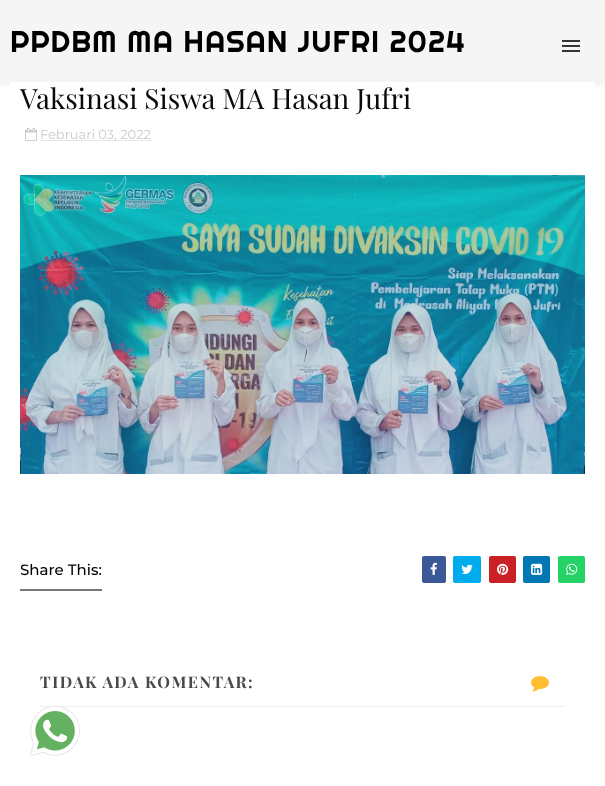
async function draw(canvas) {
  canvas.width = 605
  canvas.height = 786
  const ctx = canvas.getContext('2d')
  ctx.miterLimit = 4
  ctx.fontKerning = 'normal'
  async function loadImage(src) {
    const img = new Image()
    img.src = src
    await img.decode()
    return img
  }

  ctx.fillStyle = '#fff'
  ctx.fillRect(0, 0, 605, 786)
  ctx.fillStyle = '#0000001a'
  ctx.filter = 'blur(3px)'
  ctx.beginPath()
  ctx.rect(-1, -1, 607, 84)
  ctx.fill()
  ctx.filter = 'none'
  ctx.fillStyle = '#f5f5f5'
  ctx.fillRect(0, 0, 605, 82)
  ctx.letterSpacing = '1px'
  ctx.font = '30px Righteous'
  ctx.fillStyle = '#000'
  ctx.fillText('PPDBM MA HASAN JUFRI 2024', 10, 52)
  ctx.fillStyle = '#343434'
  ctx.fillRect(562, 40, 18, 2)
  ctx.fillRect(562, 45, 18, 2)
  ctx.fillRect(562, 50, 18, 2)
  ctx.fillStyle = '#fff'
  ctx.fillRect(10, 82, 585, 5)
  ctx.letterSpacing = '0px'
  ctx.font = '28px Playfair Display'
  ctx.fillStyle = '#0a0a0a'
  ctx.fillText('Vaksinasi Siswa MA Hasan Jufri', 20, 109)
  ctx.drawImage(await loadImage('image0.png'), 25, 127, 12, 14)
  ctx.beginPath()
  ctx.moveTo(40.5, 140.5)
  ctx.lineTo(151.5, 140.5)
  ctx.strokeStyle = '#cbcbcb'
  ctx.setLineDash([1, 1])
  ctx.stroke()
  ctx.font = '13px Montserrat'
  ctx.fillStyle = '#cbcbcb'
  ctx.fillText('Februari 03, 2022', 40, 139)
  ctx.drawImage(await loadImage('image1.png'), 20, 175, 565, 299)
  ctx.fillStyle = '#777'
  ctx.fillRect(20, 589, 82, 2)
  ctx.font = '500 15px Montserrat'
  ctx.fillStyle = '#000'
  ctx.fillText('Share This:', 20, 575)
  ctx.fillStyle = '#3b5998'
  ctx.beginPath()
  ctx.roundRect(422, 556, 24, 27, 2)
  ctx.fill()
  ctx.drawImage(await loadImage('image2.png'), 430, 562, 7, 13)
  ctx.fillStyle = '#00acee'
  ctx.beginPath()
  ctx.roundRect(453, 556, 28, 27, 2)
  ctx.fill()
  ctx.drawImage(await loadImage('image3.png'), 461, 564, 12, 10)
  ctx.fillStyle = '#ca2127'
  ctx.beginPath()
  ctx.roundRect(489, 556, 27, 27, 2)
  ctx.fill()
  ctx.drawImage(await loadImage('image4.png'), 497, 563, 12, 12)
  ctx.fillStyle = '#0077b5'
  ctx.beginPath()
  ctx.roundRect(523, 556, 27, 27, 2)
  ctx.fill()
  ctx.drawImage(await loadImage('image5.png'), 531, 563, 12, 12)
  ctx.fillStyle = '#25d266'
  ctx.beginPath()
  ctx.roundRect(558, 556, 27, 27, 2)
  ctx.fill()
  ctx.drawImage(await loadImage('image6.png'), 566, 563, 12, 12)
  ctx.fillStyle = '#efefef'
  ctx.fillRect(40, 706, 525, 1)
  ctx.letterSpacing = '1.5px'
  ctx.font = 'bold 16px Playfair Display'
  ctx.fillStyle = '#48494d'
  ctx.fillText('TIDAK ADA KOMENTAR:', 40, 688)
  ctx.drawImage(await loadImage('image7.png'), 531, 676, 18, 16)
  ctx.drawImage(await loadImage('image8.png'), 30, 706, 50, 50)
}

draw(document.querySelector('canvas'))
